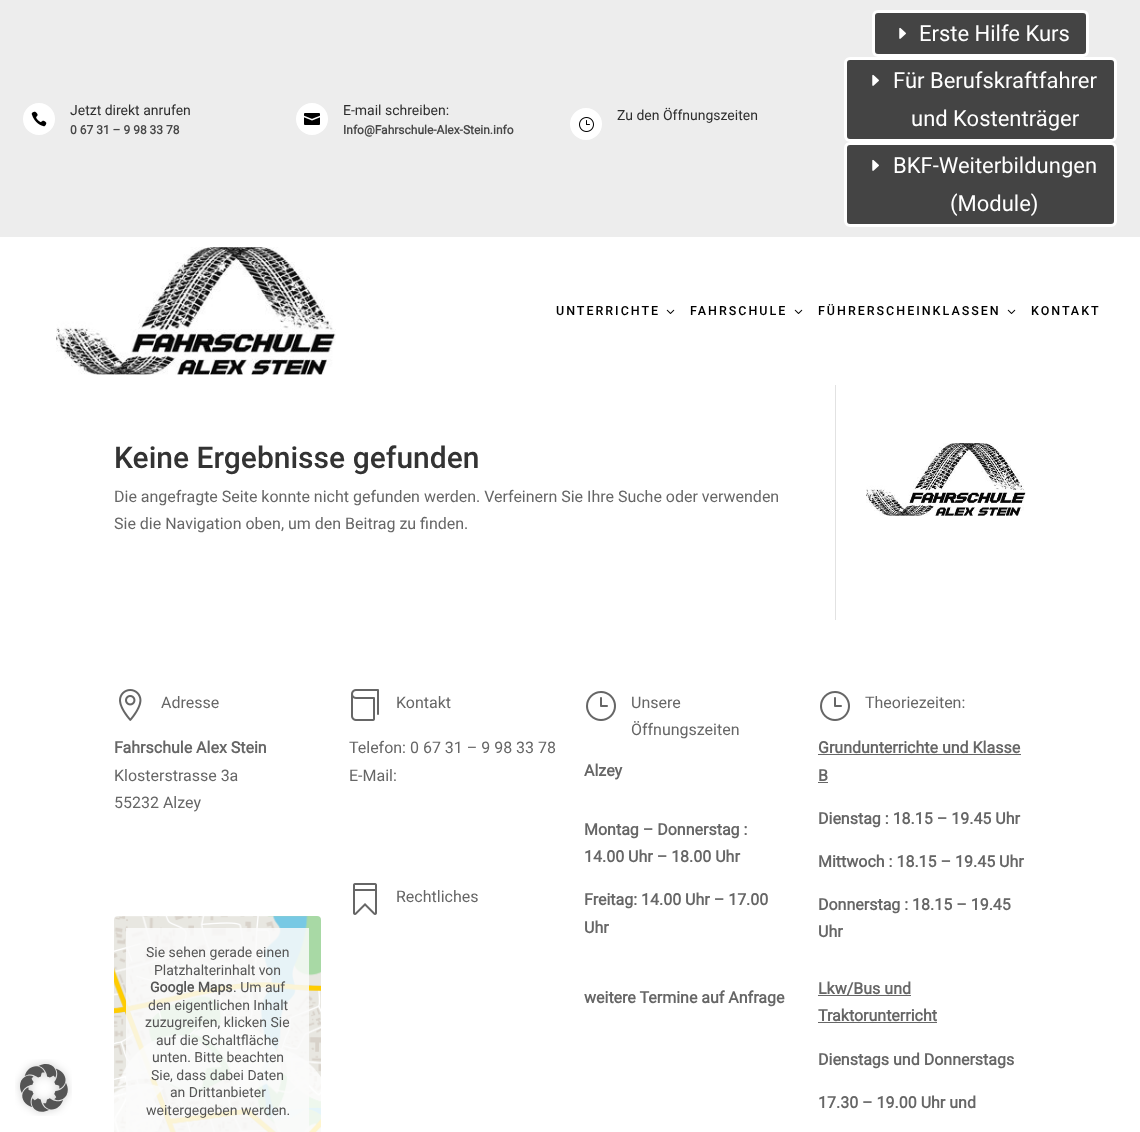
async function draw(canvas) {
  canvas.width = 1140
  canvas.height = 1132
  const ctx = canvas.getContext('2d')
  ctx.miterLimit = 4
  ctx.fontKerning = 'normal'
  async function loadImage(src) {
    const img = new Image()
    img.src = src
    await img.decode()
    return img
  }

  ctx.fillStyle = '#fff'
  ctx.fillRect(0, 0, 1140, 1132)
  ctx.drawImage(await loadImage('image0.png'), 15, 1059, 57, 57)
  ctx.fillStyle = '#ededed'
  ctx.fillRect(0, 0, 1140, 237)
  ctx.fillStyle = '#fff'
  ctx.beginPath()
  ctx.arc(39, 119, 16, 0, 2 * Math.PI)
  ctx.fill()
  ctx.drawImage(await loadImage('image1.png'), 31, 111, 16, 16)
  ctx.font = '14px Roboto'
  ctx.fillStyle = '#2d2d2d'
  ctx.fillText('Jetzt direkt anrufen', 70, 115)
  ctx.font = 'bold 12px Roboto'
  ctx.fillStyle = '#474747'
  ctx.fillText('0 67 31 – 9 98 33 78', 70, 134)
  ctx.fillStyle = '#fff'
  ctx.beginPath()
  ctx.arc(312, 119, 16, 0, 2 * Math.PI)
  ctx.fill()
  ctx.drawImage(await loadImage('image2.png'), 304, 113, 16, 12)
  ctx.font = '14px Roboto'
  ctx.fillStyle = '#2d2d2d'
  ctx.fillText('E-mail schreiben:', 343, 115)
  ctx.font = 'bold 12px Roboto'
  ctx.fillStyle = '#474747'
  ctx.fillText('Info@Fahrschule-Alex-Stein.info', 343, 134)
  ctx.fillStyle = '#fff'
  ctx.beginPath()
  ctx.arc(586, 124, 16, 0, 2 * Math.PI)
  ctx.fill()
  ctx.drawImage(await loadImage('image3.png'), 579, 117, 15, 15)
  ctx.font = '14px Roboto'
  ctx.fillStyle = '#2d2d2d'
  ctx.fillText('Zu den Öffnungszeiten', 617, 120)
  ctx.fillStyle = '#444'
  ctx.beginPath()
  ctx.roundRect(873.5, 11.5, 214, 44, 4.5)
  ctx.fill()
  ctx.strokeStyle = '#fff'
  ctx.lineWidth = 3
  ctx.stroke()
  ctx.drawImage(await loadImage('image4.png'), 899, 27, 7, 12)
  ctx.font = '22px Roboto'
  ctx.fillStyle = '#fff'
  ctx.fillText('Erste Hilfe Kurs', 919, 41)
  ctx.fillStyle = '#444'
  ctx.beginPath()
  ctx.roundRect(845.5, 58.5, 270, 82, 4.5)
  ctx.fill()
  ctx.stroke()
  ctx.drawImage(await loadImage('image4.png'), 872, 74, 7, 12)
  ctx.fillStyle = '#fff'
  ctx.fillText('Für Berufskraftfahrer', 893, 88)
  ctx.fillText('und Kostenträger', 911, 126)
  ctx.fillStyle = '#444'
  ctx.beginPath()
  ctx.roundRect(845.5, 143.5, 270, 82, 4.5)
  ctx.fill()
  ctx.stroke()
  ctx.drawImage(await loadImage('image4.png'), 872, 159, 7, 12)
  ctx.fillStyle = '#fff'
  ctx.fillText('BKF-Weiterbildungen', 893, 173)
  ctx.fillText('(Module)', 950, 211)
  ctx.drawImage(await loadImage('image5.png'), 56, 247, 280, 128)
  ctx.letterSpacing = '2px'
  ctx.font = '500 12.5px Roboto'
  ctx.fillStyle = '#000'
  ctx.fillText('UNTERRICHTE', 556, 315)
  ctx.drawImage(await loadImage('image6.png'), 666, 309, 9, 5)
  ctx.fillText('FAHRSCHULE', 690, 315)
  ctx.drawImage(await loadImage('image6.png'), 794, 309, 9, 5)
  ctx.fillText('FÜHRERSCHEINKLASSEN', 818, 315)
  ctx.drawImage(await loadImage('image6.png'), 1007, 309, 9, 5)
  ctx.fillText('KONTAKT', 1031, 315)
  ctx.letterSpacing = '0px'
  ctx.font = '500 30px Roboto'
  ctx.fillStyle = '#333'
  ctx.fillText('Keine Ergebnisse gefunden', 114, 468)
  ctx.font = '16px Roboto'
  ctx.fillStyle = '#666'
  ctx.fillText('Die angefragte Seite konnte nicht gefunden werden. Verfeinern Sie Ihre Suche oder verwenden', 114, 502)
  ctx.fillText('Sie die Navigation oben, um den Beitrag zu finden.', 114, 529)
  ctx.drawImage(await loadImage('image7.png'), 866, 443, 160, 73)
  ctx.fillStyle = '#e2e2e2'
  ctx.fillRect(835, 385, 1, 235)
  ctx.drawImage(await loadImage('image8.png'), 119, 689, 23, 32)
  ctx.fillStyle = '#666'
  ctx.fillText('Adresse', 161, 708)
  ctx.font = 'bold 16px Roboto'
  ctx.fillText('Fahrschule Alex Stein', 114, 753)
  ctx.font = '16px Roboto'
  ctx.fillText('Klosterstrasse 3a', 114, 781)
  ctx.fillText('55232 Alzey', 114, 808)
  ctx.drawImage(await loadImage('image9.png'), 114, 916, 207, 216)
  ctx.fillStyle = '#fafafad9'
  ctx.fillRect(126, 928, 183, 204)
  ctx.font = '14px Roboto'
  ctx.fillStyle = '#555'
  ctx.fillText('Sie sehen gerade einen', 146, 957)
  ctx.fillText('Platzhalterinhalt von', 154, 975)
  ctx.font = 'bold 14px Roboto'
  ctx.fillText('Google Maps', 150, 992)
  ctx.font = '14px Roboto'
  ctx.fillText('. Um auf', 233, 992)
  ctx.fillText('den eigentlichen Inhalt', 148, 1010)
  ctx.fillText('zuzugreifen, klicken Sie', 145, 1027)
  ctx.fillText('auf die Schaltfläche', 156, 1045)
  ctx.fillText('unten. Bitte beachten', 152, 1062)
  ctx.fillText('Sie, dass dabei Daten', 151, 1080)
  ctx.fillText('an Drittanbieter', 170, 1097)
  ctx.fillText('weitergegeben werden.', 146, 1115)
  ctx.drawImage(await loadImage('image10.png'), 351, 689, 28, 32)
  ctx.font = '16px Roboto'
  ctx.fillStyle = '#666'
  ctx.fillText('Kontakt', 396, 708)
  ctx.fillText('Telefon: 0 67 31 – 9 98 33 78', 349, 753)
  ctx.fillText('E-Mail:', 349, 781)
  ctx.drawImage(await loadImage('image11.png'), 353, 883, 24, 32)
  ctx.fillText('Rechtliches', 396, 902)
  ctx.drawImage(await loadImage('image12.png'), 586, 691, 30, 30)
  ctx.fillText('Unsere', 631, 708)
  ctx.fillText('Öffnungszeiten', 631, 735)
  ctx.font = 'bold 16px Roboto'
  ctx.fillText('Alzey', 584, 776)
  ctx.fillText('Montag – Donnerstag :', 584, 835)
  ctx.fillText('14.00 Uhr – 18.00 Uhr', 584, 862)
  ctx.fillText('Freitag: 14.00 Uhr – 17.00', 584, 905)
  ctx.fillText('Uhr', 584, 933)
  ctx.fillText('weitere Termine auf Anfrage', 584, 1003)
  ctx.drawImage(await loadImage('image12.png'), 820, 691, 30, 30)
  ctx.font = '16px Roboto'
  ctx.fillText('Theoriezeiten:', 865, 708)
  ctx.font = 'bold 16px Roboto'
  ctx.fillText('Grundunterrichte und Klasse', 818, 753)
  ctx.fillRect(818, 754, 203, 1)
  ctx.fillText('B', 818, 781)
  ctx.fillRect(818, 782, 10, 1)
  ctx.fillText('Dienstag : 18.15 – 19.45 Uhr', 818, 824)
  ctx.fillText('Mittwoch : 18.15 – 19.45 Uhr', 818, 867)
  ctx.fillText('Donnerstag : 18.15 – 19.45', 818, 910)
  ctx.fillText('Uhr', 818, 937)
  ctx.fillText('Lkw/Bus und', 818, 994)
  ctx.fillRect(818, 995, 93, 1)
  ctx.fillText('Traktorunterricht', 818, 1021)
  ctx.fillRect(818, 1022, 119, 1)
  ctx.fillText('Dienstags und Donnerstags', 818, 1065)
  ctx.fillText('17.30 – 19.00 Uhr und', 818, 1108)
}

draw(document.querySelector('canvas'))
